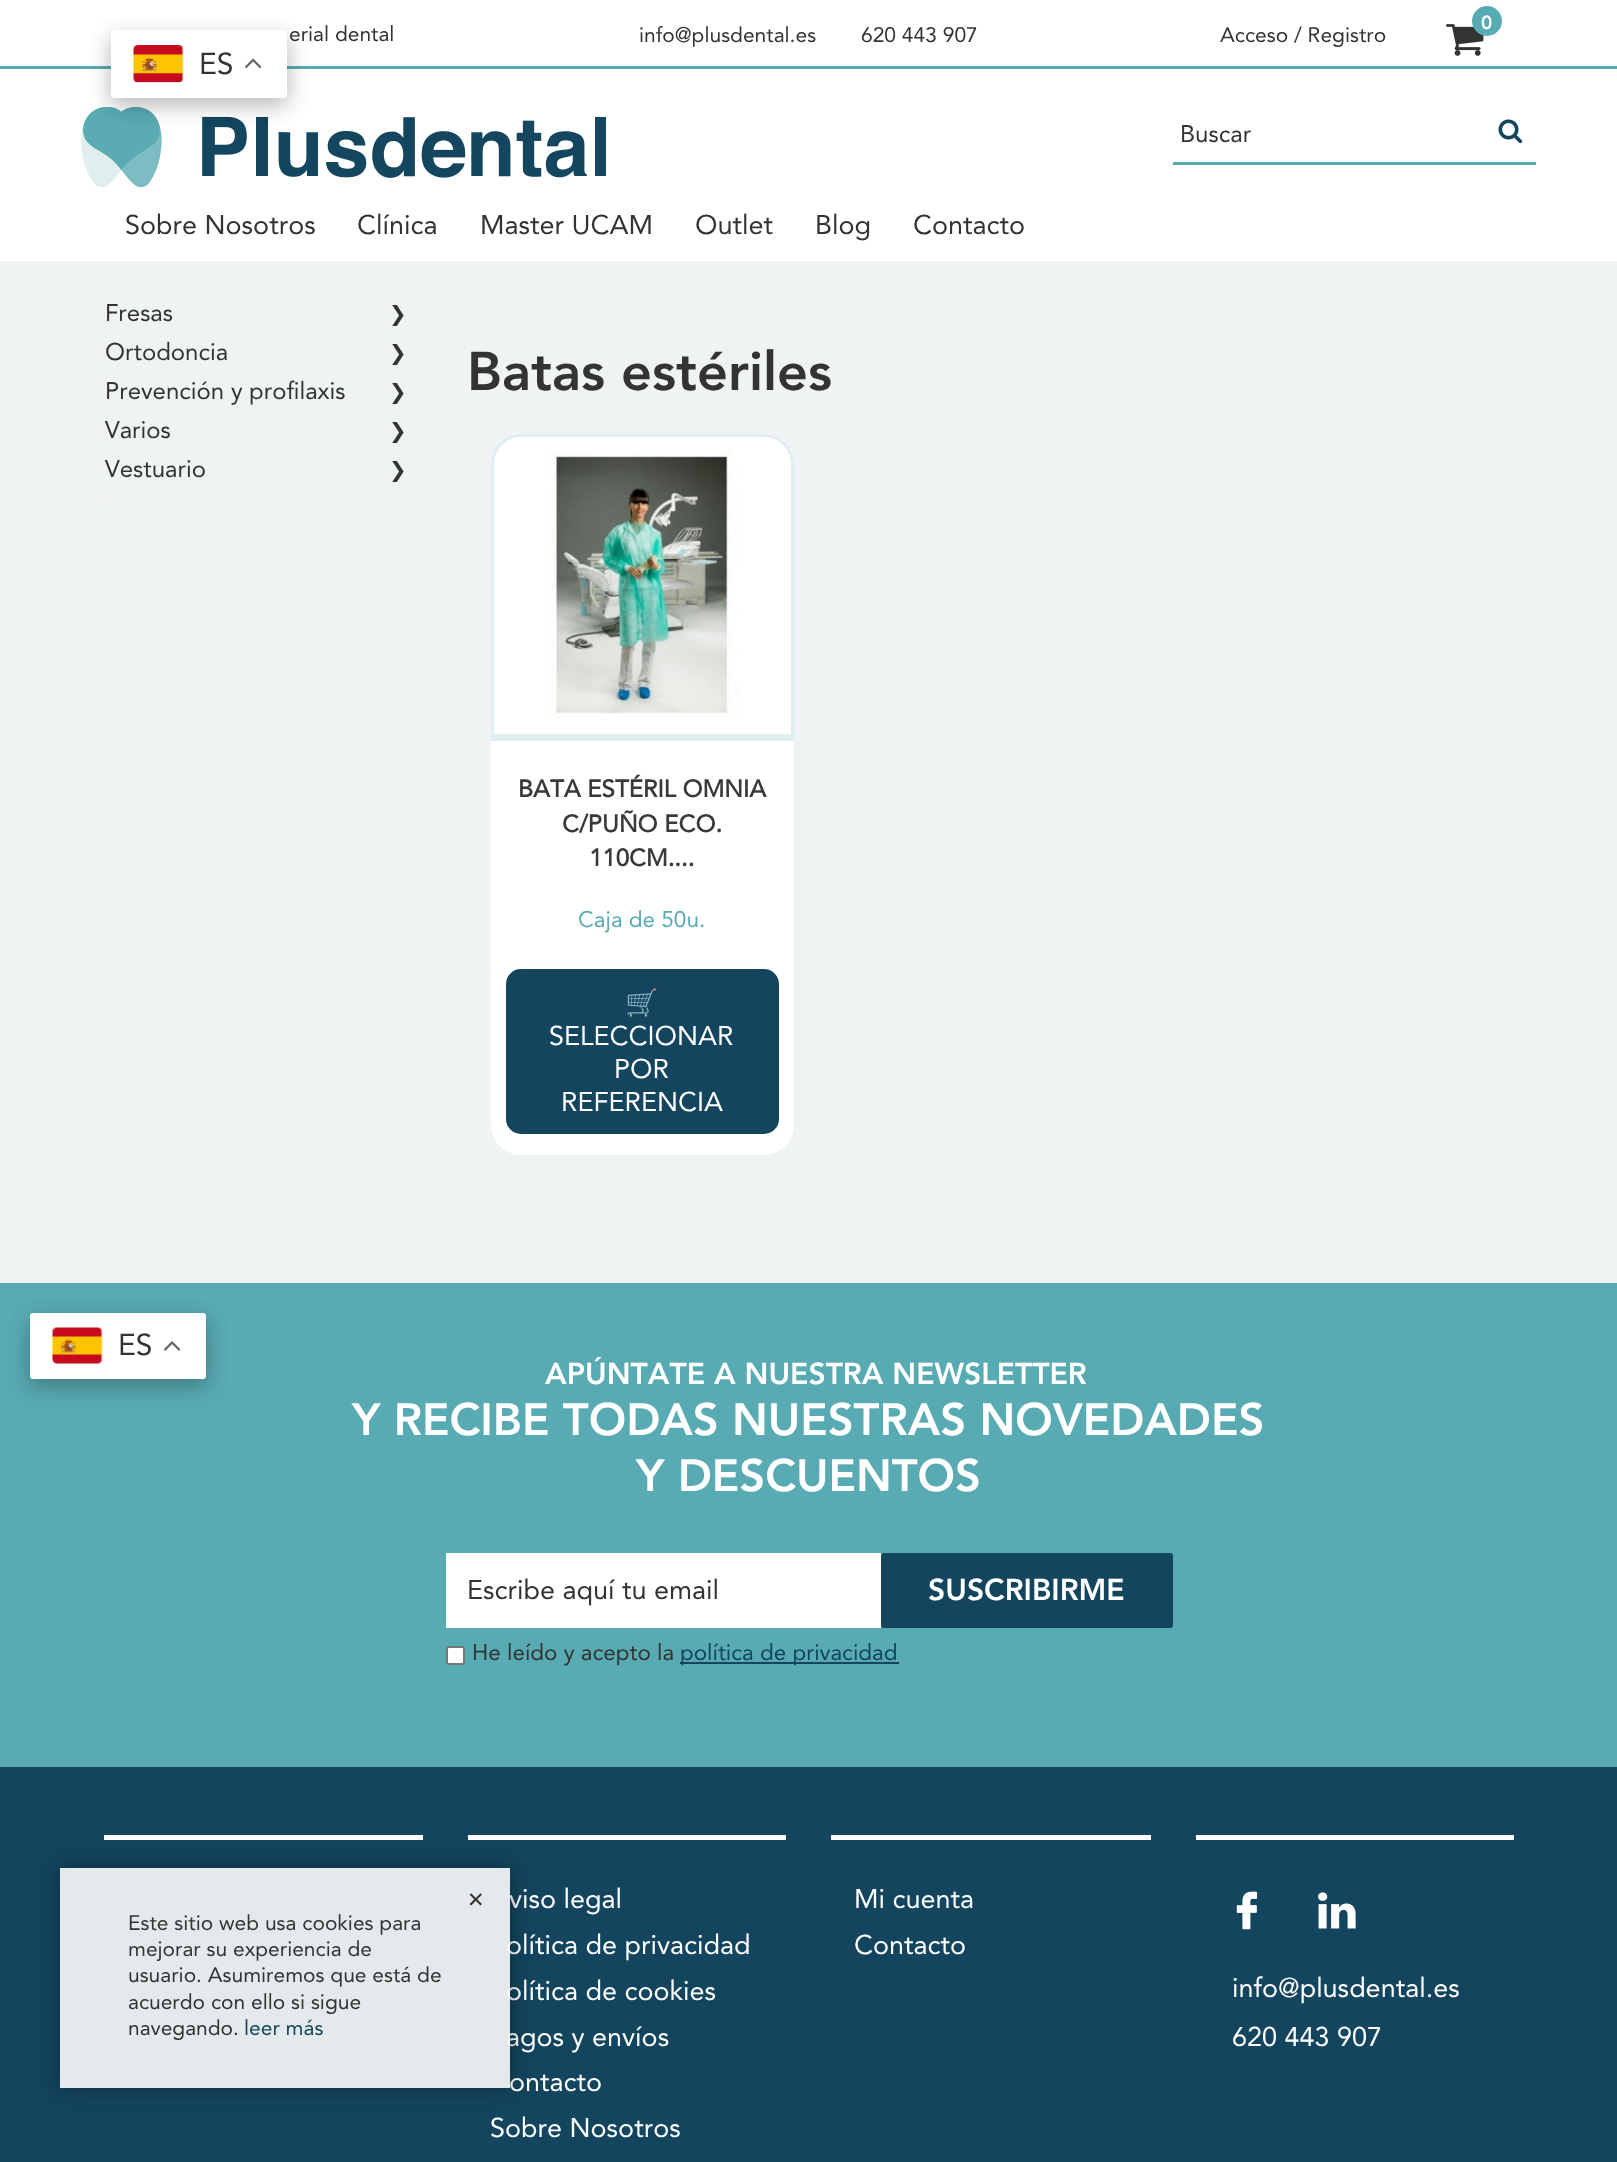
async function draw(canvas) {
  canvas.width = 1617
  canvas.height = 2162
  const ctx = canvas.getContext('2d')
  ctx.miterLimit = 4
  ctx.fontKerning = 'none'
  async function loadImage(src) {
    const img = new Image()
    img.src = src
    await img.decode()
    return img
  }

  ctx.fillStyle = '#eff3f4'
  ctx.fillRect(0, 0, 1617, 2162)
  ctx.fillStyle = '#fff'
  ctx.fillRect(0, 0, 1617, 261)
  ctx.fillStyle = '#59abb3'
  ctx.fillRect(0, 66, 1617, 3)
  ctx.drawImage(await loadImage('image0.png'), 1446, 24, 38, 32)
  ctx.beginPath()
  ctx.arc(1487, 21, 15, 0, 2 * Math.PI)
  ctx.fill()
  ctx.font = '900 19px Avenir'
  ctx.fillStyle = '#fff'
  ctx.fillText('0', 1481, 29)
  ctx.font = '21px Avenir'
  ctx.fillStyle = '#333'
  ctx.fillText('erial dental', 289, 41)
  ctx.fillText('info@plusdental.es', 639, 42)
  ctx.fillText('620 443 907', 861, 42)
  ctx.fillText('Acceso / Registro', 1220, 42)
  ctx.drawImage(await loadImage('image3.png'), 81, 107, 525, 81)
  ctx.fillStyle = '#00000026'
  ctx.filter = 'blur(11px)'
  ctx.beginPath()
  ctx.roundRect(111, 38, 176, 67, 3)
  ctx.fill()
  ctx.filter = 'none'
  ctx.filter = 'blur(11px)'
  ctx.beginPath()
  ctx.roundRect(111, 38, 176, 67, 3)
  ctx.fill()
  ctx.filter = 'none'
  ctx.fillStyle = '#fff'
  ctx.beginPath()
  ctx.roundRect(111, 30, 176, 68, 3)
  ctx.fill()
  ctx.drawImage(await loadImage('image1.png'), 133, 45, 51, 38)
  ctx.font = '30px Avenir'
  ctx.fillStyle = '#333'
  ctx.fillText('ES', 199, 74)
  ctx.drawImage(await loadImage('image2.png'), 245, 58, 16, 11)
  ctx.fillStyle = '#59abb3'
  ctx.fillRect(1173, 162, 363, 3)
  ctx.font = '24px Avenir'
  ctx.fillStyle = '#333'
  ctx.fillText('Buscar', 1180, 142)
  ctx.drawImage(await loadImage('image4.png'), 1498, 119, 25, 25)
  ctx.font = '27px Avenir'
  ctx.fillText('Sobre Nosotros', 125, 234)
  ctx.fillText('Clínica', 357, 234)
  ctx.fillText('Master UCAM', 480, 234)
  ctx.fillText('Outlet', 695, 234)
  ctx.fillText('Blog', 815, 234)
  ctx.fillText('Contacto', 913, 234)
  ctx.strokeStyle = '#f1f1f1'
  ctx.lineWidth = 2
  ctx.strokeRect(105, 277, 317, 225)
  ctx.font = '24px Avenir'
  ctx.fillText('Fresas', 105, 321)
  ctx.font = '21px DejaVu Sans'
  ctx.fillText('❯', 389, 321)
  ctx.font = '24px Avenir'
  ctx.fillText('Ortodoncia', 105, 360)
  ctx.font = '21px DejaVu Sans'
  ctx.fillText('❯', 389, 360)
  ctx.font = '24px Avenir'
  ctx.fillText('Prevención y profilaxis', 105, 399)
  ctx.font = '21px DejaVu Sans'
  ctx.fillText('❯', 389, 399)
  ctx.font = '24px Avenir'
  ctx.fillText('Varios', 105, 438)
  ctx.font = '21px DejaVu Sans'
  ctx.fillText('❯', 389, 438)
  ctx.font = '24px Avenir'
  ctx.fillText('Vestuario', 105, 477)
  ctx.font = '21px DejaVu Sans'
  ctx.fillText('❯', 389, 477)
  ctx.font = '900 54px Avenir'
  ctx.fillText('Batas estériles', 467, 390)
  ctx.fillStyle = '#fff'
  ctx.beginPath()
  ctx.roundRect(491, 434, 303, 721, 30)
  ctx.fill()
  ctx.beginPath()
  ctx.roundRect(492.5, 435.5, 300, 304, [28.5, 28.5, 0, 0])
  ctx.strokeStyle = '#e0eef0'
  ctx.lineWidth = 3
  ctx.stroke()
  ctx.fillStyle = '#e0eef0'
  ctx.fillRect(491, 734, 303, 4)
  ctx.drawImage(await loadImage('image5.png'), 550, 450, 189, 270)
  ctx.font = 'bold 24px Avenir'
  ctx.fillStyle = '#3a3939'
  ctx.fillText('BATA ESTÉRIL OMNIA', 518, 797)
  ctx.fillText('C/PUÑO ECO.', 562, 832)
  ctx.fillText('110CM....', 589, 866)
  ctx.font = '22.5px Avenir'
  ctx.fillStyle = '#59abb3'
  ctx.fillText('Caja de 50u.', 578, 927)
  ctx.fillStyle = '#13455e'
  ctx.beginPath()
  ctx.roundRect(507.5, 970.5, 270, 162, 13.5)
  ctx.fill()
  ctx.strokeStyle = '#13455e'
  ctx.stroke()
  ctx.font = 'bold 27px Noto Color Emoji'
  ctx.fillStyle = '#fff'
  ctx.fillText('🛒', 625, 1012)
  ctx.font = '27px Avenir'
  ctx.fillText('SELECCIONAR', 549, 1045)
  ctx.fillText('POR', 614, 1078)
  ctx.fillText('REFERENCIA', 561, 1111)
  ctx.fillStyle = '#13455e'
  ctx.fillRect(0, 1767, 1617, 395)
  ctx.fillStyle = '#59abb3'
  ctx.fillRect(0, 1283, 1617, 484)
  ctx.fillStyle = '#00000026'
  ctx.filter = 'blur(11px)'
  ctx.beginPath()
  ctx.roundRect(30, 1320, 176, 66, 3)
  ctx.fill()
  ctx.filter = 'none'
  ctx.filter = 'blur(11px)'
  ctx.beginPath()
  ctx.roundRect(30, 1320, 176, 66, 3)
  ctx.fill()
  ctx.filter = 'none'
  ctx.fillStyle = '#fff'
  ctx.beginPath()
  ctx.roundRect(30, 1313, 176, 66, 3)
  ctx.fill()
  ctx.drawImage(await loadImage('image6.png'), 52, 1327, 51, 37)
  ctx.font = '30px Avenir'
  ctx.fillStyle = '#333'
  ctx.fillText('ES', 118, 1355)
  ctx.drawImage(await loadImage('image7.png'), 164, 1341, 16, 10)
  ctx.font = '900 30px Avenir'
  ctx.fillStyle = '#fff'
  ctx.fillText('APÚNTATE', 545, 1384)
  ctx.fillText('A NUESTRA NEWSLETTER', 714, 1384)
  ctx.font = '900 45px Avenir'
  ctx.fillText('Y RECIBE TODAS NUESTRAS NOVEDADES', 352, 1435)
  ctx.fillText('Y DESCUENTOS', 636, 1491)
  ctx.fillRect(446, 1553, 435, 75)
  ctx.font = '27px Avenir'
  ctx.fillStyle = '#333'
  ctx.fillText('Escribe aquí tu email', 467, 1599)
  ctx.fillStyle = '#13455e'
  ctx.beginPath()
  ctx.roundRect(882.5, 1554.5, 289, 72, 1.5)
  ctx.fill()
  ctx.stroke()
  ctx.font = '900 30px Avenir'
  ctx.fillStyle = '#fff'
  ctx.fillText('SUSCRIBIRME', 928, 1600)
  ctx.beginPath()
  ctx.roundRect(447, 1647, 17, 17, 2)
  ctx.fill()
  ctx.strokeStyle = '#767676'
  ctx.lineWidth = 2
  ctx.stroke()
  ctx.font = '22.5px Avenir'
  ctx.fillStyle = '#333'
  ctx.fillText('He leído y acepto la', 472, 1660)
  ctx.fillStyle = '#13455e'
  ctx.fillRect(680, 1662, 219, 2)
  ctx.fillText('política de privacidad', 680, 1660)
  ctx.fillStyle = '#fff'
  ctx.fillRect(104, 1835, 319, 5)
  ctx.fillRect(468, 1835, 318, 5)
  ctx.font = '27px Avenir'
  ctx.fillText('viso legal', 509, 1908)
  ctx.fillText('olítica de privacidad', 506, 1954)
  ctx.fillText('olítica de cookies', 506, 2000)
  ctx.fillText('agos y envíos', 506, 2046)
  ctx.fillText('ontacto', 509, 2091)
  ctx.fillText('Sobre Nosotros', 490, 2137)
  ctx.fillRect(831, 1835, 320, 5)
  ctx.fillText('Mi cuenta', 854, 1908)
  ctx.fillText('Contacto', 854, 1954)
  ctx.fillRect(1196, 1835, 318, 5)
  ctx.drawImage(await loadImage('image8.png'), 1236, 1891, 22, 39)
  ctx.drawImage(await loadImage('image9.png'), 1318, 1892, 38, 37)
  ctx.fillText('info@plusdental.es', 1232, 1997)
  ctx.fillText('620 443 907', 1232, 2046)
  ctx.save()
  ctx.beginPath()
  ctx.moveTo(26, 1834)
  ctx.lineTo(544, 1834)
  ctx.lineTo(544, 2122)
  ctx.lineTo(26, 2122)
  ctx.closePath()
  ctx.moveTo(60, 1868)
  ctx.lineTo(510, 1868)
  ctx.lineTo(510, 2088)
  ctx.lineTo(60, 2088)
  ctx.closePath()
  ctx.clip('evenodd')
  ctx.fillStyle = '#00000061'
  ctx.filter = 'blur(11px)'
  ctx.beginPath()
  ctx.rect(60, 1868, 450, 220)
  ctx.fill()
  ctx.filter = 'none'
  ctx.restore()
  ctx.fillStyle = '#fafafae8'
  ctx.fillRect(60, 1868, 450, 220)
  ctx.font = '21px DejaVu Sans'
  ctx.fillStyle = '#333'
  ctx.fillText('✕', 467, 1907)
  ctx.font = '21px Avenir'
  ctx.fillText('Este sitio web usa cookies para', 128, 1930)
  ctx.fillText('mejorar su experiencia de', 128, 1956)
  ctx.fillText('usuario. Asumiremos que está de', 128, 1982)
  ctx.fillText('acuerdo con ello si sigue', 128, 2009)
  ctx.fillText('navegando.', 128, 2035)
  ctx.fillStyle = '#13455e'
  ctx.fillText('leer más', 244, 2035)
}

draw(document.querySelector('canvas'))
